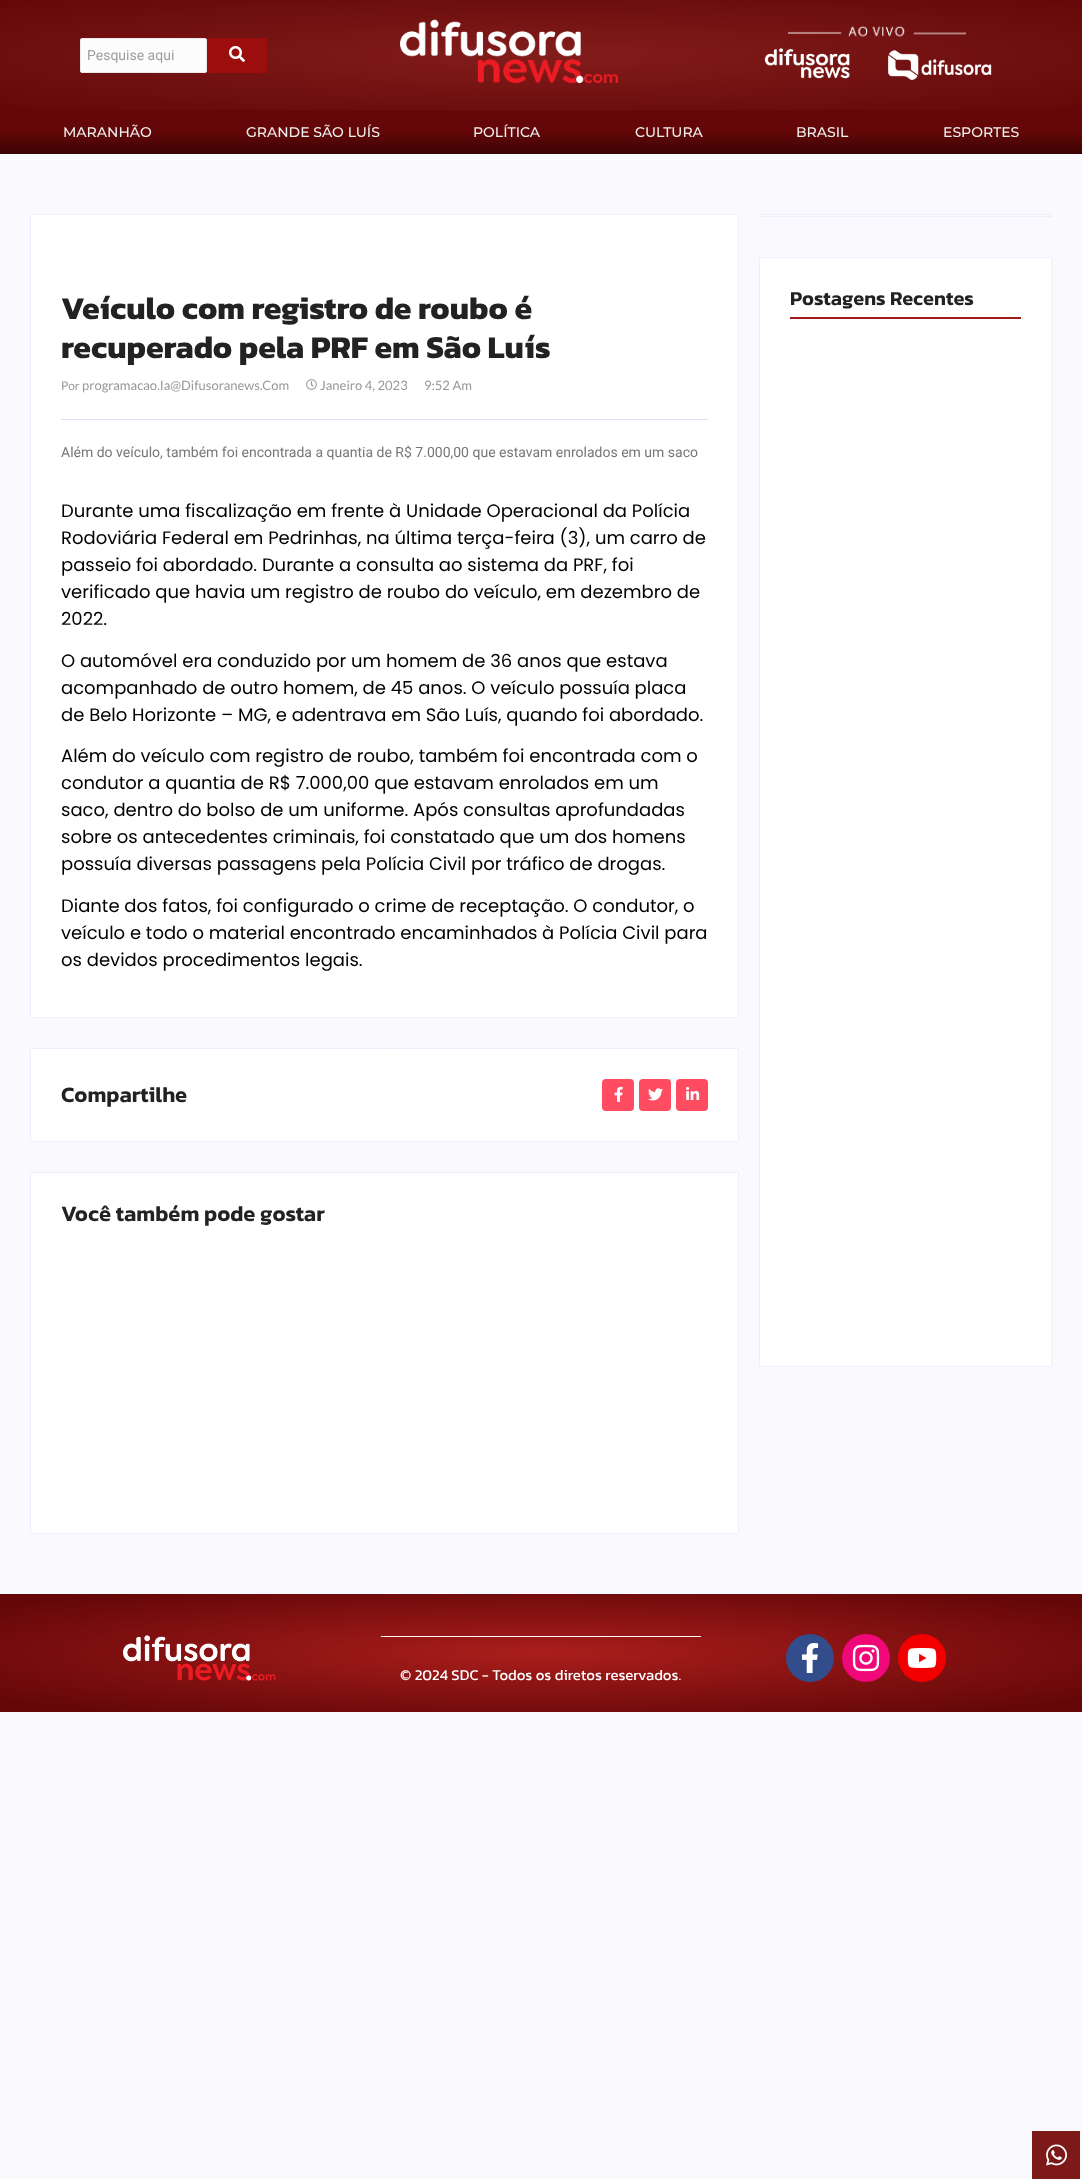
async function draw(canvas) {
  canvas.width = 1082
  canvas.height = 2179
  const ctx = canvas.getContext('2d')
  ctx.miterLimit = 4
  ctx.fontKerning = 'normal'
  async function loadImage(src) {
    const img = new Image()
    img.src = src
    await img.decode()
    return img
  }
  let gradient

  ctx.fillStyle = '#f9f9fe'
  ctx.fillRect(0, 0, 1082, 2179)
  gradient = ctx.createRadialGradient(541, 539.42, 0, 541, 539.42, 765)
  gradient.addColorStop(0, '#821d1c')
  gradient.addColorStop(1, '#650708')
  ctx.fillStyle = gradient
  ctx.beginPath()
  ctx.rect(0, 0, 1082, 110)
  ctx.save()
  ctx.clip()
  ctx.scale(1, 78 / 765)
  ctx.fillRect(0, 0, 1082, 21371)
  ctx.restore()
  ctx.fillStyle = '#fffffffc'
  ctx.beginPath()
  ctx.roundRect(80.5, 38.5, 126, 34, 1.5)
  ctx.fill()
  ctx.strokeStyle = '#e8e8e8'
  ctx.stroke()
  ctx.font = '14px Roboto'
  ctx.fillStyle = '#9e9e9e'
  ctx.fillText('Pesquise aqui', 87, 60)
  ctx.fillStyle = '#9c0e0d'
  ctx.fillRect(207, 38, 60, 35)
  ctx.drawImage(await loadImage('image0.png'), 229, 46, 16, 16)
  ctx.drawImage(await loadImage('image1.png'), 400, 19, 219, 65)
  ctx.drawImage(await loadImage('image2.png'), 788, 26, 178, 11)
  ctx.drawImage(await loadImage('image3.png'), 764, 48, 86, 31)
  ctx.drawImage(await loadImage('image4.png'), 888, 50, 104, 30)
  gradient = ctx.createLinearGradient(541, 110, 541, 154)
  gradient.addColorStop(0.48, '#650708')
  gradient.addColorStop(1, '#3c0404')
  ctx.fillStyle = gradient
  ctx.fillRect(0, 110, 1082, 44)
  ctx.font = '500 14px Montserrat'
  ctx.fillStyle = '#efefef'
  ctx.fillText('MARANHÃO', 63, 137)
  ctx.fillText('GRANDE SÃO LUÍS', 246, 137)
  ctx.fillText('POLÍTICA', 473, 137)
  ctx.fillText('CULTURA', 635, 137)
  ctx.fillText('BRASIL', 796, 137)
  ctx.fillText('ESPORTES', 943, 137)
  ctx.fillStyle = '#fff'
  ctx.beginPath()
  ctx.rect(30.5, 214.5, 708, 803)
  ctx.fill()
  ctx.strokeStyle = '#eeeefc'
  ctx.stroke()
  ctx.font = 'bold 32px Kanit'
  ctx.fillStyle = '#222'
  ctx.fillText('Veículo com registro de roubo é', 61, 319)
  ctx.fillText('recuperado pela PRF em São Luís', 61, 358)
  ctx.font = '12px Lato'
  ctx.fillStyle = '#989898'
  ctx.fillText('Por', 61, 390)
  ctx.font = '13px Lato'
  ctx.fillText('programacao.Ia@Difusoranews.Com', 82, 390)
  ctx.drawImage(await loadImage('image5.png'), 306, 379, 11, 11)
  ctx.fillText('Janeiro 4, 2023', 320, 390)
  ctx.fillText('9:52 Am', 424, 390)
  ctx.fillStyle = '#e0e0f2'
  ctx.fillRect(61, 419, 647, 1)
  ctx.font = '14px Roboto'
  ctx.fillStyle = '#777'
  ctx.fillText('Além do veículo, também foi encontrada a quantia de R$ 7.000,00 que estavam enrolados em um saco', 61, 457)
  ctx.font = '18px Poppins'
  ctx.fillStyle = '#000'
  ctx.fillText('Durante uma fiscalização em frente à Unidade Operacional da Polícia', 61, 517)
  ctx.fillText('Rodoviária Federal em Pedrinhas, na última terça-feira (3), um carro de', 61, 544)
  ctx.fillText('passeio foi abordado. Durante a consulta ao sistema da PRF, foi', 61, 571)
  ctx.fillText('verificado que havia um registro de roubo do veículo, em dezembro de', 61, 598)
  ctx.fillText('2022.', 61, 625)
  ctx.fillText('O automóvel era conduzido por um homem de 36 anos que estava', 61, 667)
  ctx.fillText('acompanhado de outro homem, de 45 anos. O veículo possuía placa', 61, 694)
  ctx.fillText('de Belo Horizonte – MG, e adentrava em São Luís, quando foi abordado.', 61, 721)
  ctx.fillText('Além do veículo com registro de roubo, também foi encontrada com o', 61, 762)
  ctx.fillText('condutor a quantia de R$ 7.000,00 que estavam enrolados em um', 61, 789)
  ctx.fillText('saco, dentro do bolso de um uniforme. Após consultas aprofundadas', 61, 816)
  ctx.fillText('sobre os antecedentes criminais, foi constatado que um dos homens', 61, 843)
  ctx.fillText('possuía diversas passagens pela Polícia Civil por tráfico de drogas.', 61, 870)
  ctx.fillText('Diante dos fatos, foi configurado o crime de receptação. O condutor, o', 61, 912)
  ctx.fillText('veículo e todo o material encontrado encaminhados à Polícia Civil para', 61, 939)
  ctx.fillText('os devidos procedimentos legais.', 61, 966)
  ctx.fillStyle = '#fff'
  ctx.beginPath()
  ctx.rect(30.5, 1048.5, 708, 93)
  ctx.fill()
  ctx.stroke()
  ctx.font = '600 22px Kanit'
  ctx.fillStyle = '#222'
  ctx.fillText('Compartilhe', 61, 1102)
  ctx.fillStyle = '#ff4c60'
  ctx.beginPath()
  ctx.roundRect(602, 1079, 32, 32, 4)
  ctx.fill()
  ctx.drawImage(await loadImage('image6.png'), 614, 1086, 9, 16)
  ctx.beginPath()
  ctx.roundRect(639, 1079, 32, 32, 4)
  ctx.fill()
  ctx.drawImage(await loadImage('image7.png'), 648, 1088, 15, 13)
  ctx.beginPath()
  ctx.roundRect(676, 1079, 32, 32, 4)
  ctx.fill()
  ctx.drawImage(await loadImage('image8.png'), 686, 1086, 14, 14)
  ctx.fillStyle = '#fff'
  ctx.beginPath()
  ctx.rect(30.5, 1172.5, 708, 361)
  ctx.fill()
  ctx.stroke()
  ctx.fillStyle = '#222'
  ctx.fillText('Você também pode gostar', 61, 1221)
  ctx.strokeRect(759.5, 214.5, 292, 2)
  ctx.strokeRect(759.5, 257.5, 292, 1109)
  ctx.fillStyle = '#fff'
  ctx.fillRect(760, 258, 291, 1108)
  ctx.font = '600 20px Kanit'
  ctx.fillStyle = '#222'
  ctx.fillText('Postagens Recentes', 790, 305)
  ctx.fillStyle = '#a01b19'
  ctx.fillRect(790, 317, 231, 2)
  gradient = ctx.createRadialGradient(541, 15235.48, 0, 541, 15235.48, 765)
  gradient.addColorStop(0, '#aa1e1c')
  gradient.addColorStop(0.9, '#650708')
  ctx.fillStyle = gradient
  ctx.beginPath()
  ctx.rect(0, 1594, 1082, 118)
  ctx.save()
  ctx.clip()
  ctx.scale(1, 83 / 765)
  ctx.fillRect(0, 0, 1082, 20084)
  ctx.restore()
  ctx.drawImage(await loadImage('image9.png'), 123, 1635, 153, 46)
  ctx.fillStyle = '#fff'
  ctx.fillRect(381, 1636, 320, 1)
  ctx.font = '15px Kanit'
  ctx.fillText('© 2024 SDC - Todos os diretos reservados.', 400, 1680)
  ctx.fillStyle = '#334c8c'
  ctx.beginPath()
  ctx.arc(810, 1658, 24, 0, 2 * Math.PI)
  ctx.fill()
  ctx.drawImage(await loadImage('image10.png'), 801, 1643, 18, 30)
  ctx.fillStyle = '#f00879'
  ctx.beginPath()
  ctx.arc(866, 1658, 24, 0, 2 * Math.PI)
  ctx.fill()
  ctx.drawImage(await loadImage('image11.png'), 852, 1644, 28, 28)
  ctx.fillStyle = '#f20000'
  ctx.beginPath()
  ctx.arc(922, 1658, 24, 0, 2 * Math.PI)
  ctx.fill()
  ctx.drawImage(await loadImage('image12.png'), 907, 1648, 30, 20)
  ctx.fillStyle = '#7d1919'
  ctx.fillRect(1032, 2131, 48, 48)
  ctx.drawImage(await loadImage('image13.png'), 1046, 2144, 21, 22)
}

draw(document.querySelector('canvas'))
